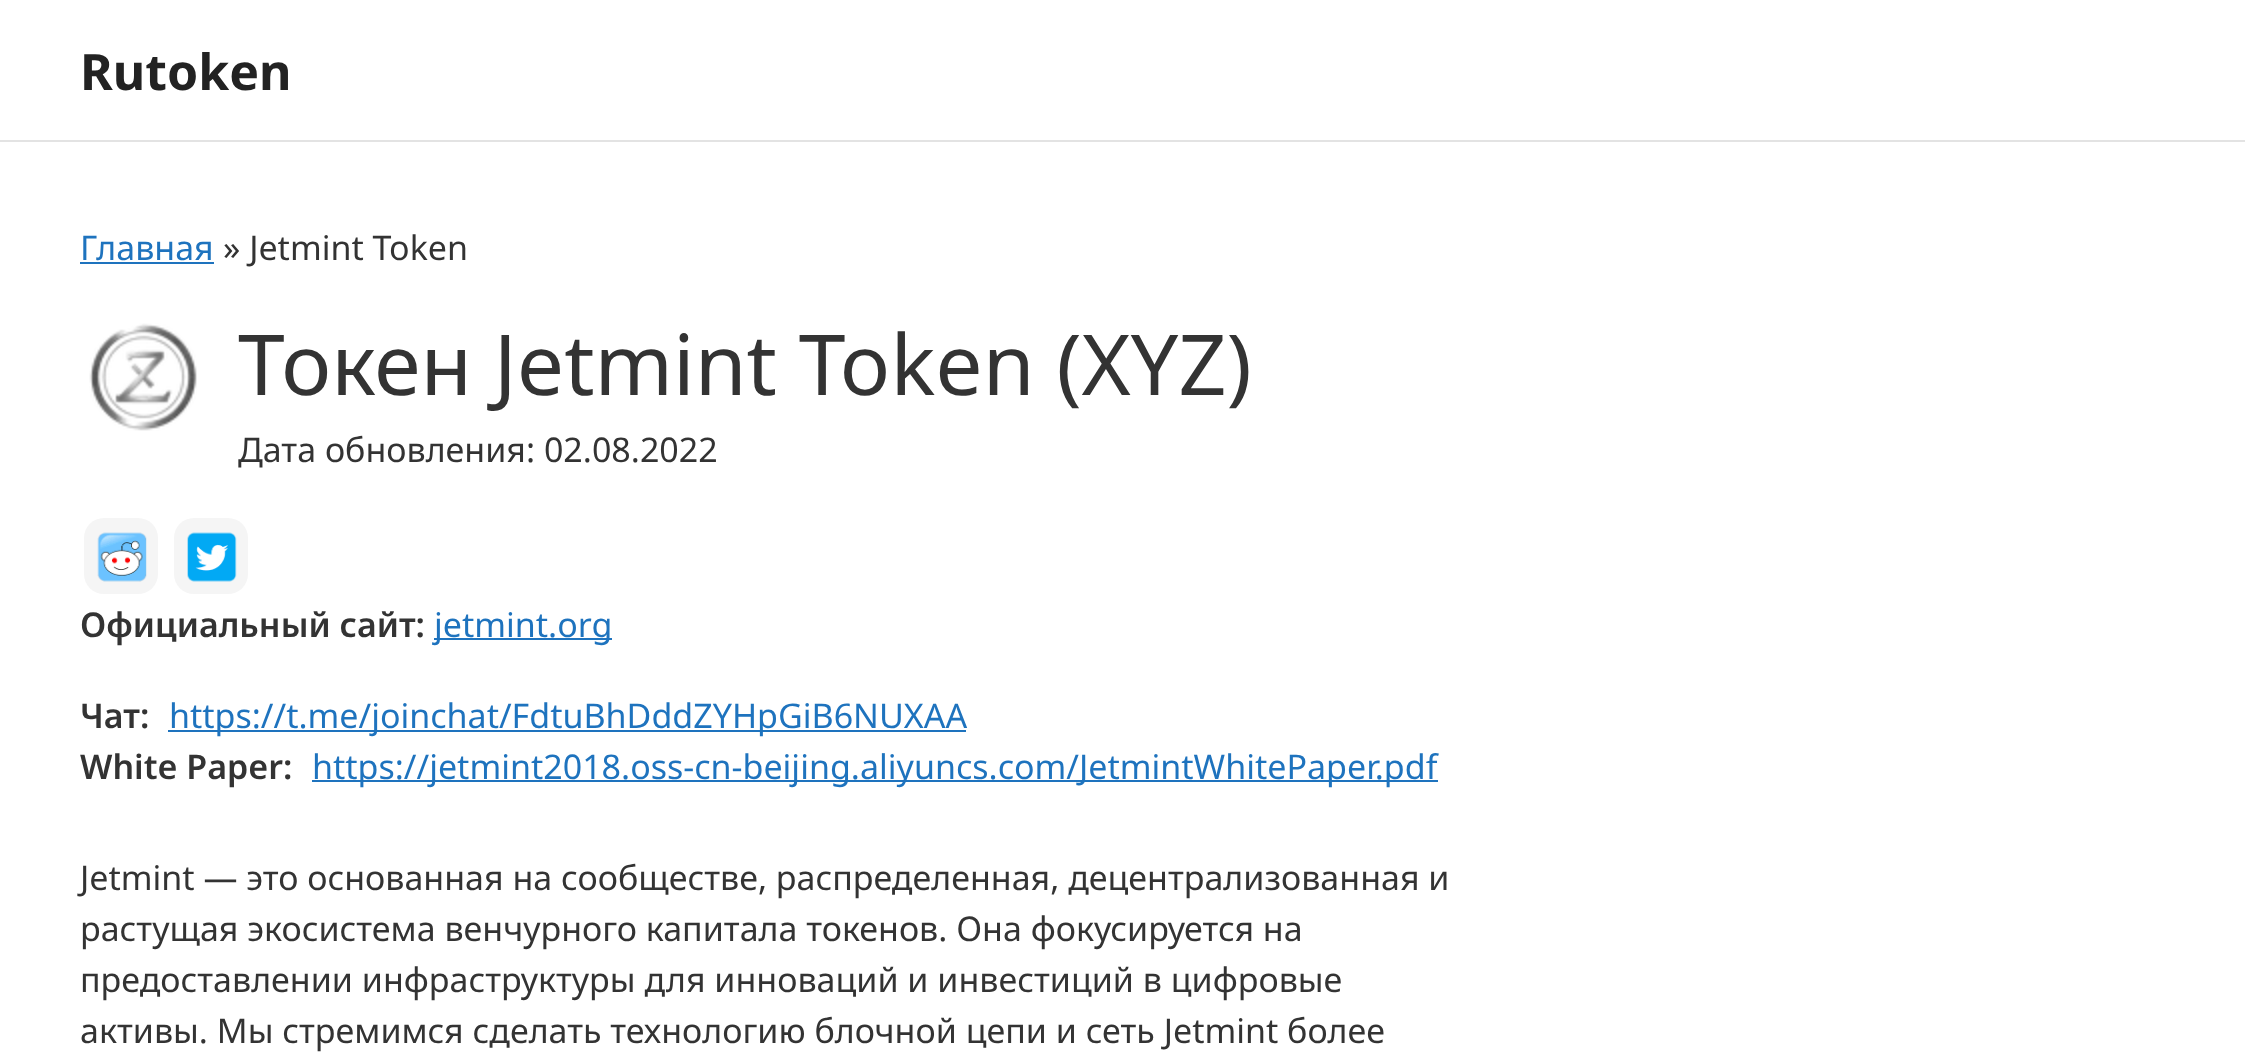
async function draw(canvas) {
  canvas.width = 2245
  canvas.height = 1055
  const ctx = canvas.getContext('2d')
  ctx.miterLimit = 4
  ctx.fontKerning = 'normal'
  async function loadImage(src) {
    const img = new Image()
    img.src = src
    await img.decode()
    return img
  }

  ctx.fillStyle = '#fff'
  ctx.fillRect(0, 0, 2245, 1055)
  ctx.fillStyle = '#e3e3e3'
  ctx.fillRect(0, 140, 2245, 2)
  ctx.font = 'bold 50px Noto Sans'
  ctx.fillStyle = '#222'
  ctx.fillText('Rutoken', 80, 90)
  ctx.font = '34px Noto Sans'
  ctx.fillStyle = '#1e73be'
  ctx.fillText('Главная', 80, 260)
  ctx.fillRect(80, 262, 134, 2)
  ctx.fillStyle = '#333'
  ctx.fillText('» Jetmint Token', 223, 260)
  ctx.drawImage(await loadImage('image0.png'), 89, 323, 108, 108)
  ctx.font = '84px Noto Sans'
  ctx.fillText('Токен Jetmint Token (XYZ)', 238, 395)
  ctx.font = '34px Noto Sans'
  ctx.fillText('Дата обновления: 02.08.2022', 238, 462)
  ctx.fillStyle = '#f5f5f5'
  ctx.beginPath()
  ctx.roundRect(84, 518, 74, 76, 20)
  ctx.fill()
  ctx.drawImage(await loadImage('image1.png'), 97, 532, 50, 50)
  ctx.beginPath()
  ctx.roundRect(174, 518, 74, 76, 20)
  ctx.fill()
  ctx.drawImage(await loadImage('image2.png'), 187, 532, 50, 50)
  ctx.font = '600 34px Noto Sans'
  ctx.fillStyle = '#333'
  ctx.fillText('Официальный сайт:', 80, 637)
  ctx.fillStyle = '#1e73be'
  ctx.fillRect(434, 638, 178, 2)
  ctx.font = '34px Noto Sans'
  ctx.fillText('jetmint.org', 434, 637)
  ctx.font = '600 34px Noto Sans'
  ctx.fillStyle = '#333'
  ctx.fillText('Чат:', 80, 728)
  ctx.fillStyle = '#1e73be'
  ctx.fillRect(168, 730, 798, 2)
  ctx.font = '34px Noto Sans'
  ctx.fillText('https://t.me/joinchat/FdtuBhDddZYHpGiB6NUXAA', 169, 728)
  ctx.font = '600 34px Noto Sans'
  ctx.fillStyle = '#333'
  ctx.fillText('White Paper:', 80, 779)
  ctx.fillStyle = '#1e73be'
  ctx.fillRect(312, 780, 1126, 2)
  ctx.font = '34px Noto Sans'
  ctx.fillText('https://jetmint2018.oss-cn-beijing.aliyuncs.com/JetmintWhitePaper.pdf', 312, 779)
  ctx.fillStyle = '#333'
  ctx.fillText('Jetmint — это основанная на сообществе, распределенная, децентрализованная и', 80, 890)
  ctx.fillText('растущая экосистема венчурного капитала токенов. Она фокусируется на', 80, 941)
  ctx.fillText('предоставлении инфраструктуры для инноваций и инвестиций в цифровые', 80, 992)
  ctx.fillText('активы. Мы стремимся сделать технологию блочной цепи и сеть Jetmint более', 80, 1043)
}

draw(document.querySelector('canvas'))
